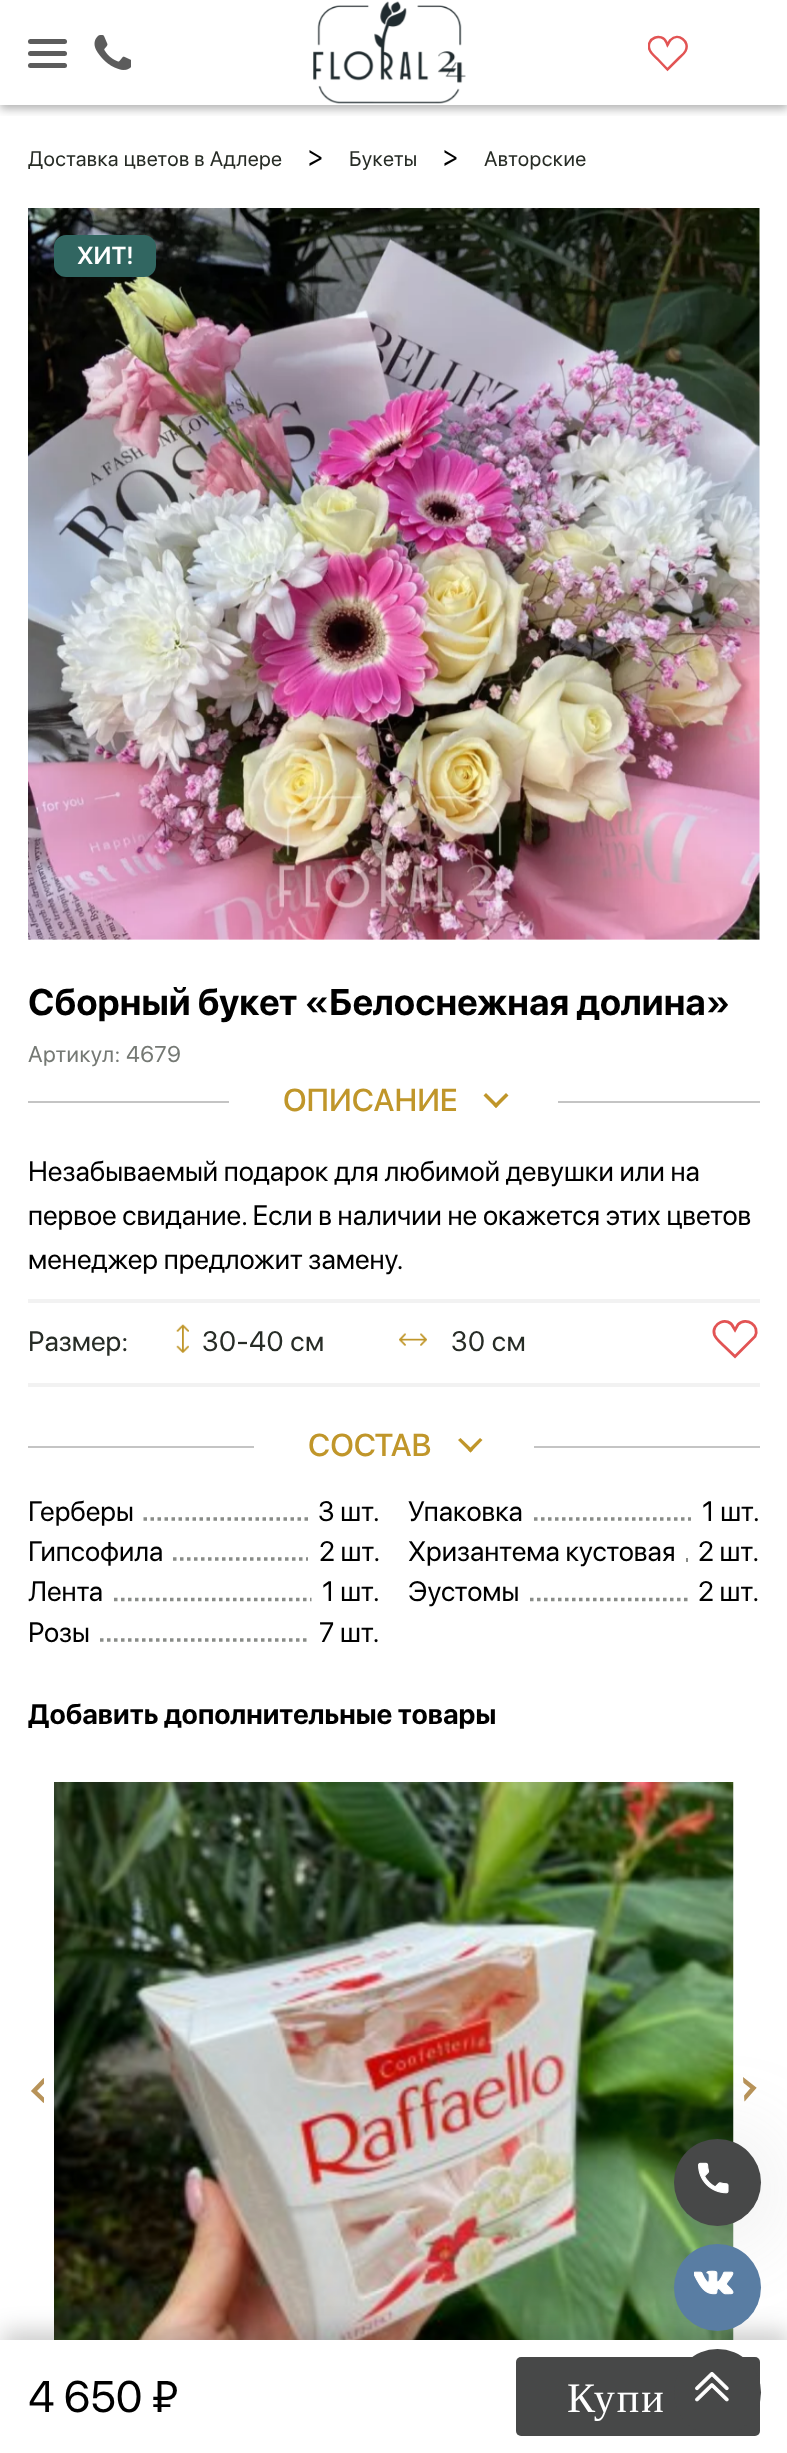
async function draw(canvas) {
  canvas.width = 787
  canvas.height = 2453
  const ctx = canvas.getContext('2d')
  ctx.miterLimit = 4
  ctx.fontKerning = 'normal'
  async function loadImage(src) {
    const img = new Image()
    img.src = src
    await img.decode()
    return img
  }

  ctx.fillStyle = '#fff'
  ctx.fillRect(0, 0, 787, 2453)
  ctx.save()
  ctx.beginPath()
  ctx.rect(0, 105, 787, 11)
  ctx.clip()
  ctx.fillStyle = '#0000004d'
  ctx.filter = 'blur(5px)'
  ctx.beginPath()
  ctx.rect(0, 4, 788, 105)
  ctx.fill()
  ctx.filter = 'none'
  ctx.restore()
  ctx.fillStyle = '#5c5c5c'
  ctx.beginPath()
  ctx.roundRect(28, 39, 39, 5, 2.5)
  ctx.fill()
  ctx.beginPath()
  ctx.roundRect(28, 51, 39, 5, 2.5)
  ctx.fill()
  ctx.beginPath()
  ctx.roundRect(28, 63, 39, 5, 2.5)
  ctx.fill()
  ctx.drawImage(await loadImage('image0.png'), 94, 35, 37, 35)
  ctx.drawImage(await loadImage('image1.png'), 313, 1, 153, 103)
  ctx.save()
  ctx.beginPath()
  ctx.rect(648, 33, 40, 41)
  ctx.clip()
  ctx.beginPath()
  ctx.moveTo(666.5, 42.5)
  ctx.lineTo(667.5, 45)
  ctx.bezierCurveTo(668.5, 43.5, 669, 41.5, 670.5, 40)
  ctx.bezierCurveTo(678, 32, 690.5, 41.5, 685.5, 51)
  ctx.bezierCurveTo(684, 54, 680.5, 56.5, 678.5, 58.5)
  ctx.lineTo(667.5, 69.5)
  ctx.lineTo(657.5, 59)
  ctx.bezierCurveTo(655, 56.5, 650.5, 53, 649.5, 49.5)
  ctx.bezierCurveTo(645.5, 38.5, 661.5, 31.5, 666.5, 42.5)
  ctx.closePath()
  ctx.strokeStyle = '#e25454'
  ctx.lineWidth = 2.5
  ctx.stroke()
  ctx.restore()
  ctx.letterSpacing = '0.4px'
  ctx.font = '21px SF Pro Display'
  ctx.fillStyle = '#272c26'
  ctx.fillText('Доставка цветов в Адлере', 28, 166)
  ctx.letterSpacing = '0px'
  ctx.font = '28px SF Pro Display'
  ctx.fillStyle = '#000'
  ctx.fillText('>', 307, 166)
  ctx.letterSpacing = '0.4px'
  ctx.font = '21px SF Pro Display'
  ctx.fillStyle = '#272c26'
  ctx.fillText('Букеты', 349, 166)
  ctx.letterSpacing = '0px'
  ctx.font = '28px SF Pro Display'
  ctx.fillStyle = '#000'
  ctx.fillText('>', 442, 166)
  ctx.letterSpacing = '0.4px'
  ctx.font = '21px SF Pro Display'
  ctx.fillStyle = '#272c26'
  ctx.fillText('Авторские', 484, 166)
  ctx.drawImage(await loadImage('image2.png'), 28, 208, 732, 732)
  ctx.fillStyle = '#316661'
  ctx.beginPath()
  ctx.roundRect(54, 235, 102, 42, 12)
  ctx.fill()
  ctx.letterSpacing = '0px'
  ctx.font = '600 24.5px SF Pro Display'
  ctx.fillStyle = '#fff'
  ctx.fillText('ХИТ!', 77, 264)
  ctx.font = 'bold 36.75px SF Pro Display'
  ctx.fillStyle = '#000'
  ctx.fillText('Сборный букет «Белоснежная долина»', 28, 1015)
  ctx.letterSpacing = '0.5px'
  ctx.font = '22.75px SF Pro Display'
  ctx.fillStyle = '#757974'
  ctx.fillText('Артикул: 4679', 28, 1062)
  ctx.fillStyle = '#c4c4c4'
  ctx.fillRect(28, 1101, 732, 2)
  ctx.fillStyle = '#fff'
  ctx.fillRect(229, 1101, 329, 2)
  ctx.letterSpacing = '0px'
  ctx.font = '500 31.5px SF Pro Display'
  ctx.fillStyle = '#c0962a'
  ctx.fillText('ОПИСАНИЕ', 283, 1111)
  ctx.beginPath()
  ctx.moveTo(506, 1093)
  ctx.lineTo(508.5, 1095.5)
  ctx.lineTo(496, 1108)
  ctx.lineTo(493.5, 1105.5)
  ctx.closePath()
  ctx.fill()
  ctx.beginPath()
  ctx.moveTo(486, 1093)
  ctx.lineTo(498.5, 1105.5)
  ctx.lineTo(496, 1108)
  ctx.lineTo(483.5, 1095.5)
  ctx.closePath()
  ctx.fill()
  ctx.font = '28px SF Pro Display'
  ctx.fillStyle = '#000'
  ctx.fillText('Незабываемый подарок для любимой девушки или на', 28, 1181)
  ctx.fillText('первое свидание. Если в наличии не окажется этих цветов', 28, 1225)
  ctx.fillText('менеджер предложит замену.', 28, 1269)
  ctx.fillStyle = '#f2f2f2'
  ctx.fillRect(28, 1299, 732, 4)
  ctx.fillRect(28, 1383, 732, 4)
  ctx.fillStyle = '#272c26'
  ctx.fillText('Размер:', 28, 1351)
  ctx.drawImage(await loadImage('image3.png'), 176, 1324, 13, 29)
  ctx.letterSpacing = '0.5px'
  ctx.fillText('30-40 см', 202, 1351)
  ctx.drawImage(await loadImage('image4.png'), 399, 1333, 28, 13)
  ctx.fillText('30 см', 451, 1351)
  ctx.beginPath()
  ctx.moveTo(733.5, 1327.5)
  ctx.lineTo(735, 1330)
  ctx.lineTo(738, 1324.5)
  ctx.bezierCurveTo(746.5, 1316, 760.5, 1326, 755, 1336.5)
  ctx.lineTo(735, 1356.5)
  ctx.lineTo(723.5, 1345.5)
  ctx.bezierCurveTo(720.5, 1342.5, 716, 1339, 714.5, 1335)
  ctx.bezierCurveTo(710.5, 1323, 728.5, 1315.5, 733.5, 1327.5)
  ctx.closePath()
  ctx.strokeStyle = '#e25454'
  ctx.lineWidth = 2.8
  ctx.stroke()
  ctx.fillStyle = '#c4c4c4'
  ctx.fillRect(28, 1446, 732, 2)
  ctx.fillStyle = '#fff'
  ctx.fillRect(254, 1446, 280, 2)
  ctx.letterSpacing = '0px'
  ctx.font = '500 31.5px SF Pro Display'
  ctx.fillStyle = '#c0962a'
  ctx.fillText('СОСТАВ', 308, 1456)
  ctx.beginPath()
  ctx.moveTo(480, 1438)
  ctx.lineTo(482.5, 1440)
  ctx.lineTo(470.5, 1452.5)
  ctx.lineTo(468, 1450)
  ctx.closePath()
  ctx.fill()
  ctx.beginPath()
  ctx.moveTo(460.5, 1438)
  ctx.lineTo(473, 1450)
  ctx.lineTo(470.5, 1452.5)
  ctx.lineTo(458, 1440)
  ctx.closePath()
  ctx.fill()
  ctx.font = '28px SF Pro Display'
  ctx.fillStyle = '#000'
  ctx.fillText('Герберы', 28, 1521)
  ctx.beginPath()
  ctx.moveTo(143.5, 1519)
  ctx.lineTo(308, 1519)
  ctx.strokeStyle = '#898c88'
  ctx.lineWidth = 3.5
  ctx.setLineDash([3.5, 3.5])
  ctx.stroke()
  ctx.fillText('3 шт.', 318, 1521)
  ctx.fillText('Упаковка', 408, 1521)
  ctx.beginPath()
  ctx.moveTo(534, 1519)
  ctx.lineTo(691, 1519)
  ctx.stroke()
  ctx.fillText('1 шт.', 702, 1521)
  ctx.fillText('Гипсофила', 28, 1561)
  ctx.beginPath()
  ctx.moveTo(173, 1559)
  ctx.lineTo(308, 1559)
  ctx.stroke()
  ctx.fillText('2 шт.', 319, 1561)
  ctx.fillText('Хризантема кустовая', 408, 1561)
  ctx.fillStyle = '#898c88'
  ctx.fillRect(686, 1558, 2, 4)
  ctx.fillStyle = '#000'
  ctx.fillText('2 шт.', 698, 1561)
  ctx.fillText('Лента', 28, 1601)
  ctx.beginPath()
  ctx.moveTo(114, 1599.5)
  ctx.lineTo(311.5, 1599.5)
  ctx.stroke()
  ctx.fillText('1 шт.', 322, 1601)
  ctx.fillText('Эустомы', 408, 1601)
  ctx.beginPath()
  ctx.moveTo(530, 1599.5)
  ctx.lineTo(688, 1599.5)
  ctx.stroke()
  ctx.fillText('2 шт.', 698, 1601)
  ctx.fillText('Розы', 28, 1642)
  ctx.beginPath()
  ctx.moveTo(100, 1640)
  ctx.lineTo(308, 1640)
  ctx.stroke()
  ctx.fillText('7 шт.', 319, 1642)
  ctx.font = 'bold 28px SF Pro Display'
  ctx.fillText('Добавить дополнительные товары', 28, 1724)
  ctx.save()
  ctx.beginPath()
  ctx.rect(30, 2077, 14, 27)
  ctx.clip()
  ctx.beginPath()
  ctx.moveTo(45, 2079.5)
  ctx.lineTo(34, 2091)
  ctx.lineTo(45, 2101.5)
  ctx.strokeStyle = '#b89359'
  ctx.lineWidth = 4.4
  ctx.setLineDash([])
  ctx.stroke()
  ctx.restore()
  ctx.drawImage(await loadImage('image5.png'), 54, 1782, 680, 558)
  ctx.save()
  ctx.beginPath()
  ctx.moveTo(758.5, 2102)
  ctx.lineTo(744.5, 2103)
  ctx.lineTo(743, 2077)
  ctx.lineTo(757, 2076)
  ctx.closePath()
  ctx.clip()
  ctx.beginPath()
  ctx.moveTo(743, 2100)
  ctx.lineTo(753.5, 2088)
  ctx.lineTo(741.5, 2078.5)
  ctx.strokeStyle = '#b89359'
  ctx.lineWidth = 4.4
  ctx.setLineDash([])
  ctx.stroke()
  ctx.restore()
  ctx.fillStyle = '#00000033'
  ctx.filter = 'blur(11.5px)'
  ctx.beginPath()
  ctx.rect(2, 2331, 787, 114)
  ctx.fill()
  ctx.filter = 'none'
  ctx.fillStyle = '#fff'
  ctx.fillRect(0, 2340, 787, 113)
  ctx.font = '44px SF Pro Display'
  ctx.fillStyle = '#000'
  ctx.fillText('4 650 ₽', 28, 2412)
  ctx.fillStyle = '#474848'
  ctx.beginPath()
  ctx.roundRect(516, 2357, 244, 79, 5)
  ctx.fill()
  ctx.letterSpacing = '2px'
  ctx.font = '42px Liberation Serif'
  ctx.fillStyle = '#fff'
  ctx.fillText('Купи', 567, 2412)
  ctx.fillStyle = '#85858540'
  ctx.filter = 'blur(48px)'
  ctx.beginPath()
  ctx.roundRect(674, 2146, 87, 87, 43.5)
  ctx.fill()
  ctx.filter = 'none'
  ctx.fillStyle = '#474848'
  ctx.beginPath()
  ctx.arc(717.5, 2182.5, 43.5, 0, 2 * Math.PI)
  ctx.fill()
  ctx.drawImage(await loadImage('image6.png'), 698, 2162, 31, 32)
  ctx.fillStyle = '#597da3'
  ctx.beginPath()
  ctx.arc(717.5, 2287.5, 43.5, 0, 2 * Math.PI)
  ctx.fill()
  ctx.drawImage(await loadImage('image7.png'), 694, 2270, 40, 25)
  ctx.fillStyle = '#474848'
  ctx.beginPath()
  ctx.arc(717.5, 2392.5, 43.5, 0, 2 * Math.PI)
  ctx.fill()
  ctx.drawImage(await loadImage('image8.png'), 695, 2372, 34, 30)
}

draw(document.querySelector('canvas'))
